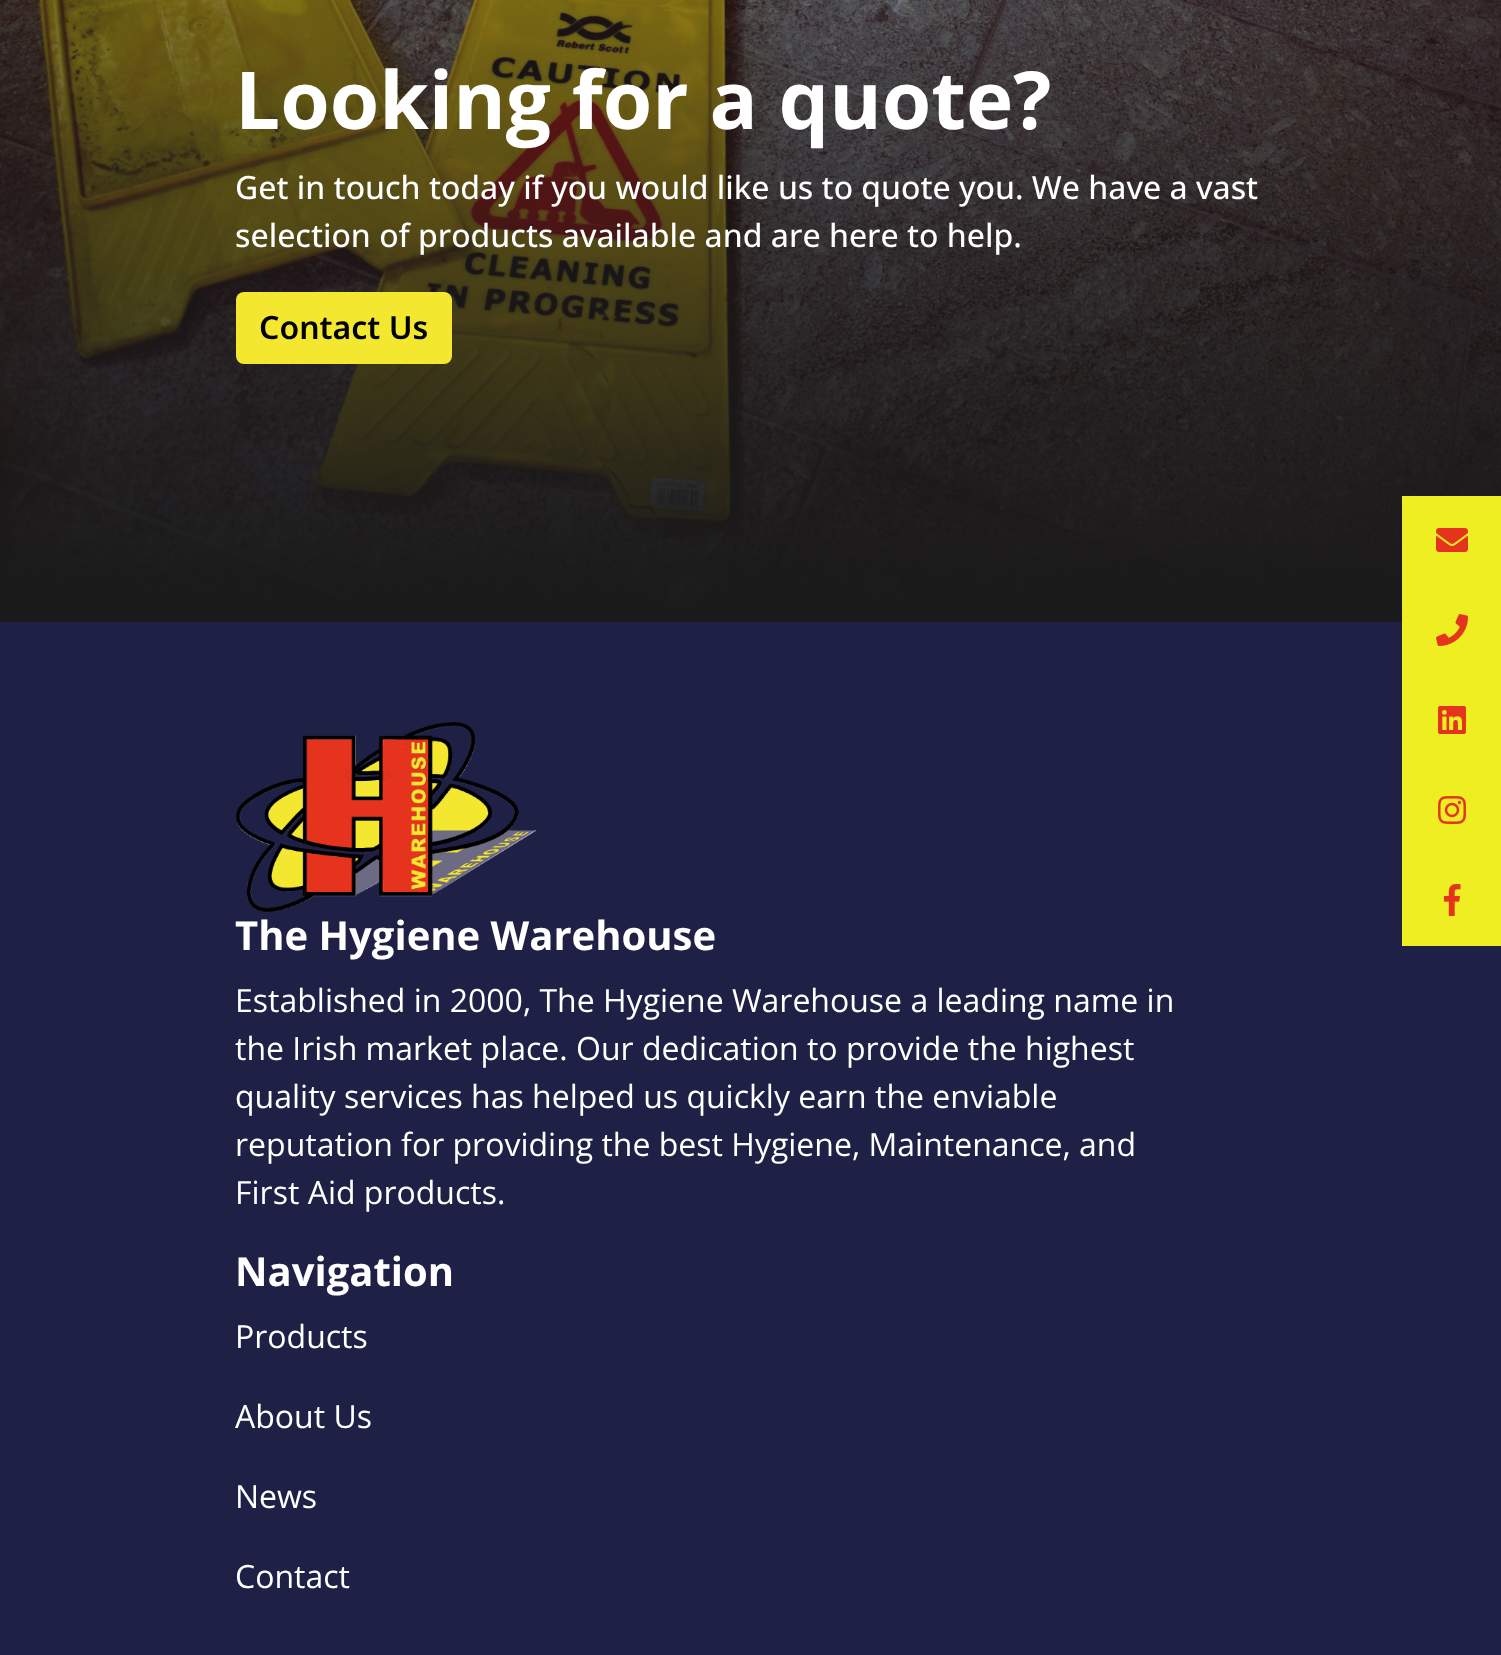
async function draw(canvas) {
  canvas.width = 1501
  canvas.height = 1655
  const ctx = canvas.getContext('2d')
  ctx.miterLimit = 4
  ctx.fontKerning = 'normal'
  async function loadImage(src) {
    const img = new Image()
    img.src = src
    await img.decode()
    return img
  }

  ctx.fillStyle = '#fff'
  ctx.fillRect(0, 0, 1501, 1655)
  ctx.drawImage(await loadImage('image0.png'), 0, 0, 1501, 622)
  ctx.font = 'bold 80px Open Sans'
  ctx.fillText('Looking for a quote?', 235, 129)
  ctx.font = '500 32px Open Sans'
  ctx.fillText('Get in touch today if you would like us to quote you. We have a vast', 235, 199)
  ctx.fillText('selection of products available and are here to help.', 235, 247)
  ctx.fillStyle = '#f4e72f'
  ctx.beginPath()
  ctx.roundRect(236, 292, 216, 72, 8)
  ctx.fill()
  ctx.font = '600 32px Noto Sans'
  ctx.fillStyle = '#000'
  ctx.fillText('Contact Us', 259, 339)
  ctx.fillStyle = '#1f2046'
  ctx.fillRect(0, 622, 1501, 1033)
  ctx.fillStyle = '#ee2'
  ctx.fillRect(1402, 496, 99, 450)
  ctx.drawImage(await loadImage('image1.png'), 1436, 528, 32, 24)
  ctx.drawImage(await loadImage('image2.png'), 1436, 614, 32, 32)
  ctx.drawImage(await loadImage('image3.png'), 1438, 706, 28, 28)
  ctx.drawImage(await loadImage('image4.png'), 1438, 796, 28, 28)
  ctx.drawImage(await loadImage('image5.png'), 1444, 884, 17, 32)
  ctx.drawImage(await loadImage('image6.png'), 236, 722, 300, 190)
  ctx.font = 'bold 40px Open Sans'
  ctx.fillStyle = '#fff'
  ctx.fillText('The Hygiene Warehouse', 235, 950)
  ctx.font = '32px Open Sans'
  ctx.fillText('Established in 2000, The Hygiene Warehouse a leading name in', 235, 1012)
  ctx.fillText('the Irish market place. Our dedication to provide the highest', 235, 1060)
  ctx.fillText('quality services has helped us quickly earn the enviable', 235, 1108)
  ctx.fillText('reputation for providing the best Hygiene, Maintenance, and', 235, 1156)
  ctx.fillText('First Aid products.', 235, 1204)
  ctx.font = 'bold 40px Open Sans'
  ctx.fillText('Navigation', 235, 1286)
  ctx.font = '32px Open Sans'
  ctx.fillText('Products', 235, 1348)
  ctx.fillText('About Us', 235, 1428)
  ctx.fillText('News', 235, 1508)
  ctx.fillText('Contact', 235, 1588)
}

draw(document.querySelector('canvas'))
